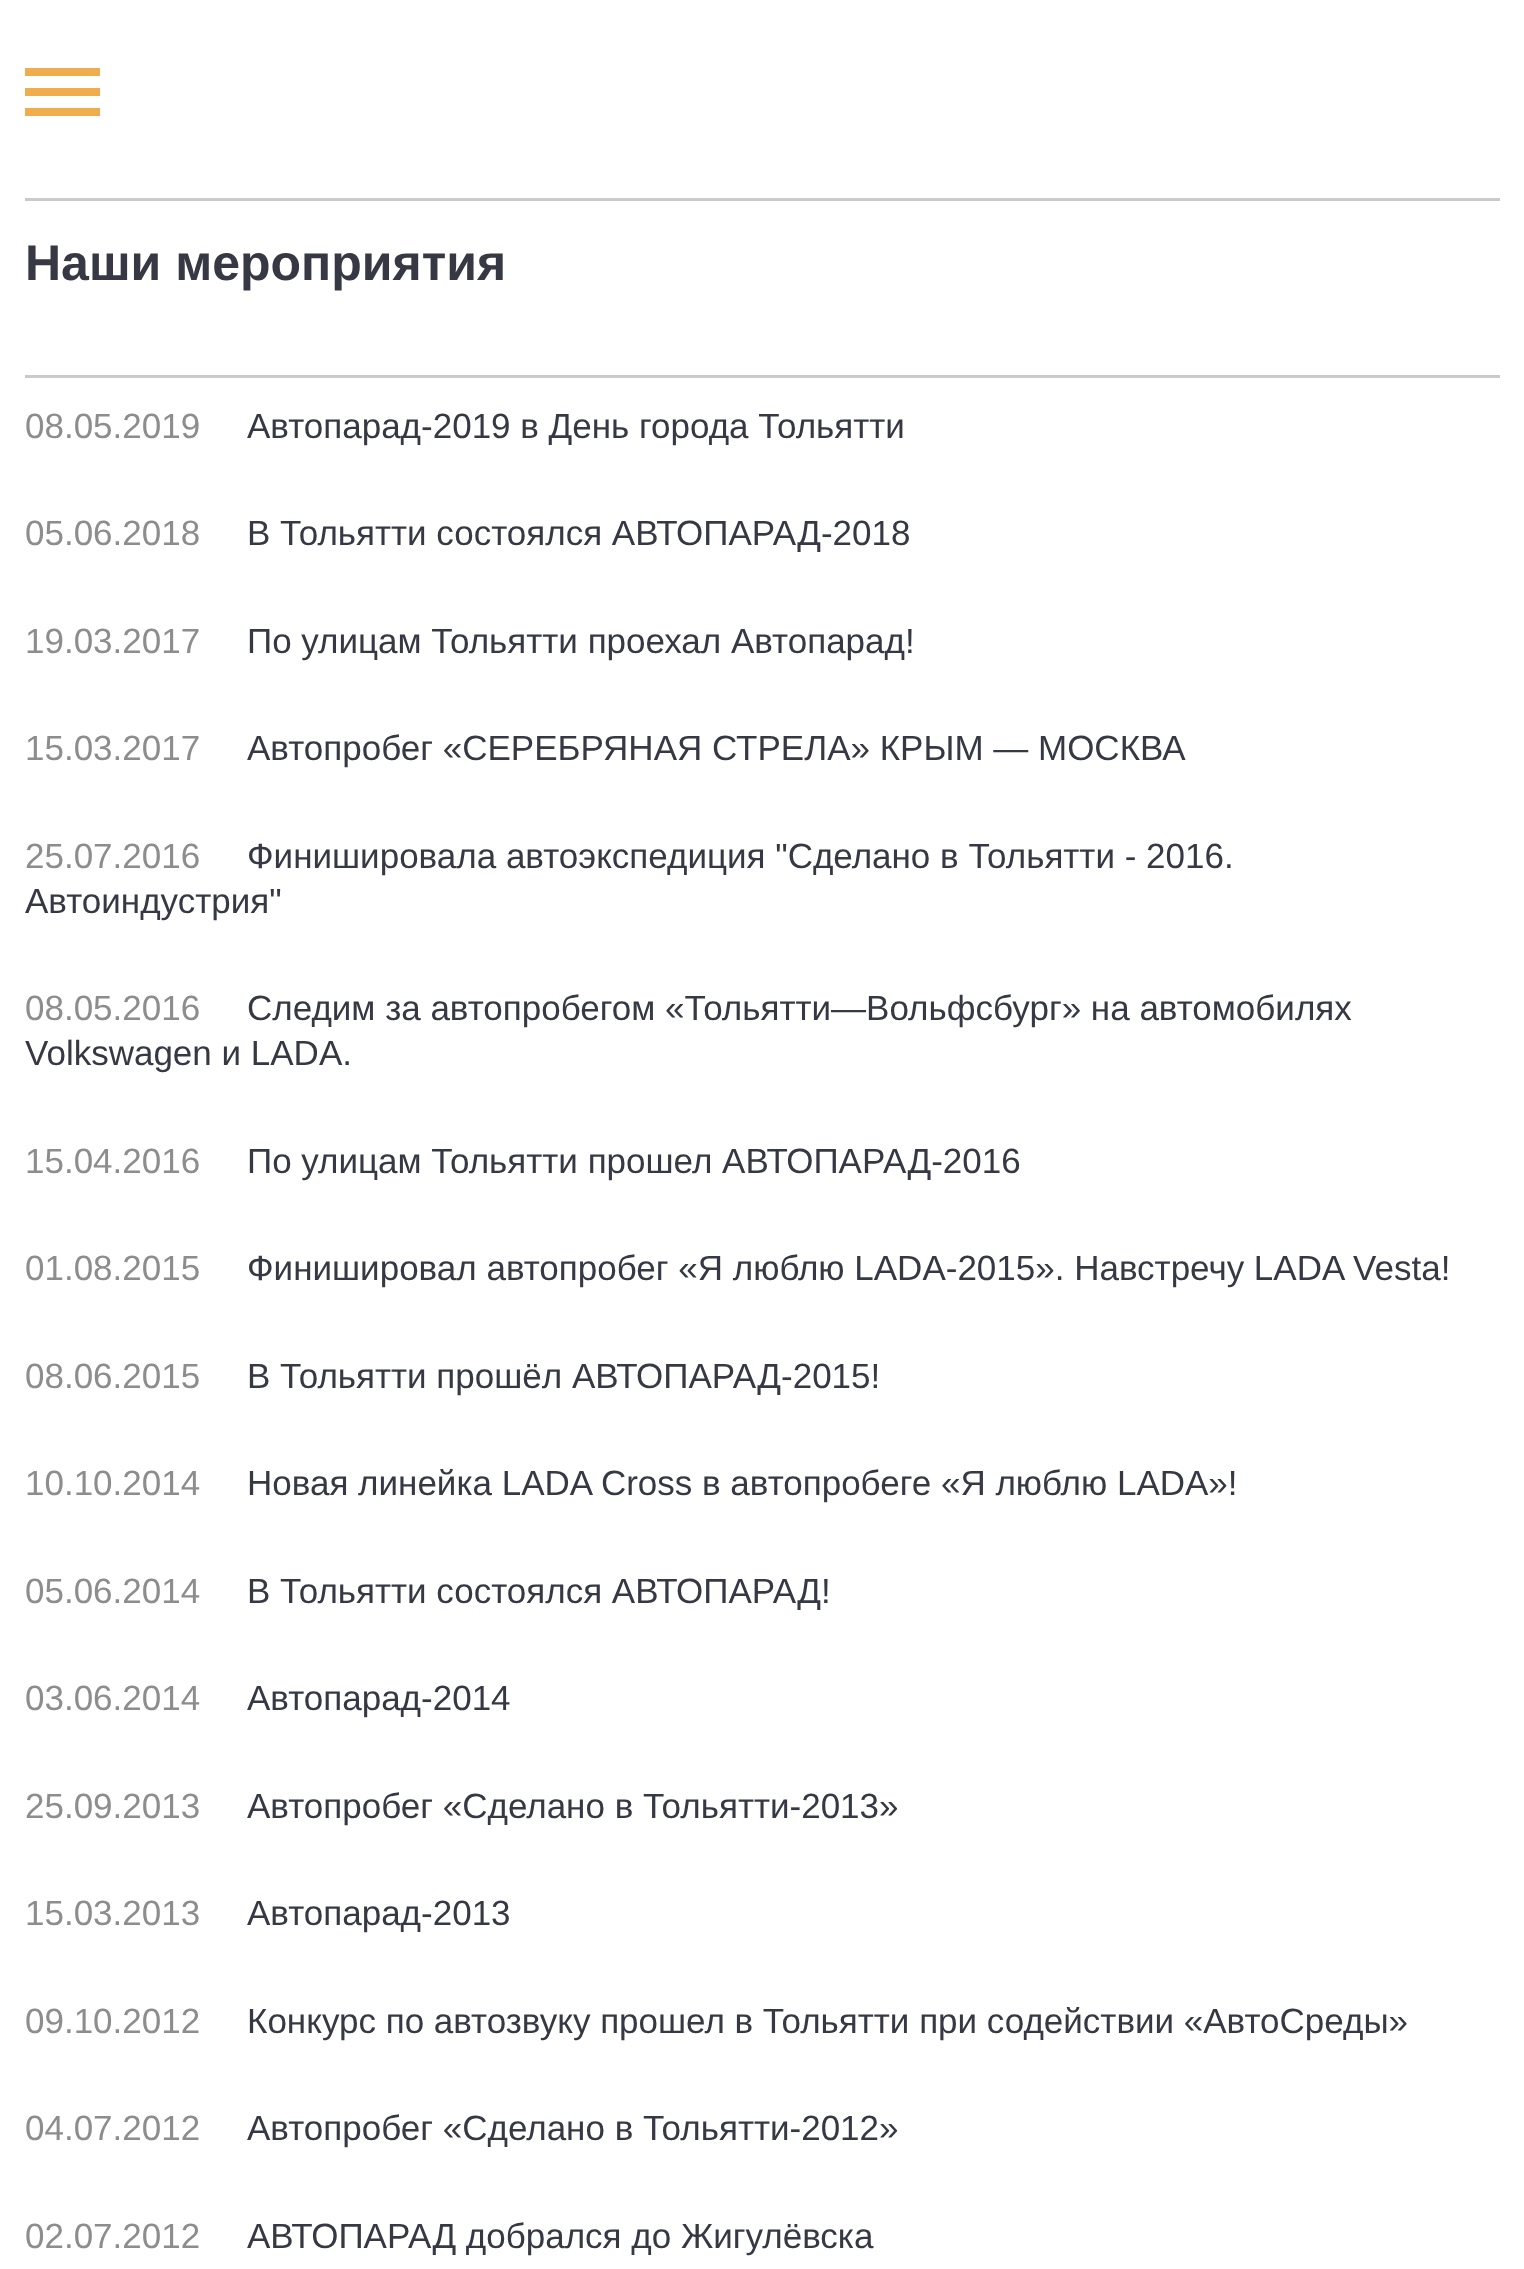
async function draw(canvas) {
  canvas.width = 1524
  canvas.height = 2269
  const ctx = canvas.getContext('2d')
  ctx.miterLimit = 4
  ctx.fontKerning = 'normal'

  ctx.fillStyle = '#fff'
  ctx.fillRect(0, 0, 1524, 2269)
  ctx.fillStyle = '#f0ad4e'
  ctx.fillRect(25, 88, 75, 8)
  ctx.fillRect(25, 68, 75, 8)
  ctx.fillRect(25, 108, 75, 8)
  ctx.fillStyle = '#cacaca'
  ctx.fillRect(25, 198, 1475, 3)
  ctx.font = 'bold 50px Liberation Sans'
  ctx.fillStyle = '#363943'
  ctx.fillText('Наши мероприятия', 25, 280)
  ctx.fillStyle = '#cacaca'
  ctx.fillRect(25, 375, 1475, 3)
  ctx.font = '35px Liberation Sans'
  ctx.fillStyle = '#8d8d8d'
  ctx.fillText('08.05.2019', 25, 438)
  ctx.fillStyle = '#363943'
  ctx.fillText('Автопарад-2019 в День города Тольятти', 247, 438)
  ctx.fillStyle = '#8d8d8d'
  ctx.fillText('05.06.2018', 25, 545)
  ctx.fillStyle = '#363943'
  ctx.fillText('В Тольятти состоялся АВТОПАРАД-2018', 247, 545)
  ctx.fillStyle = '#8d8d8d'
  ctx.fillText('19.03.2017', 25, 653)
  ctx.fillStyle = '#363943'
  ctx.fillText('По улицам Тольятти проехал Автопарад!', 247, 653)
  ctx.fillStyle = '#8d8d8d'
  ctx.fillText('15.03.2017', 25, 760)
  ctx.fillStyle = '#363943'
  ctx.fillText('Автопробег «СЕРЕБРЯНАЯ СТРЕЛА» КРЫМ — МОСКВА', 247, 760)
  ctx.fillStyle = '#8d8d8d'
  ctx.fillText('25.07.2016', 25, 868)
  ctx.fillStyle = '#363943'
  ctx.fillText('Финишировала автоэкспедиция "Сделано в Тольятти - 2016.', 247, 868)
  ctx.fillText('Автоиндустрия"', 25, 913)
  ctx.fillStyle = '#8d8d8d'
  ctx.fillText('08.05.2016', 25, 1020)
  ctx.fillStyle = '#363943'
  ctx.fillText('Следим за автопробегом «Тольятти—Вольфсбург» на автомобилях', 247, 1020)
  ctx.fillText('Volkswagen и LADA.', 25, 1065)
  ctx.fillStyle = '#8d8d8d'
  ctx.fillText('15.04.2016', 25, 1173)
  ctx.fillStyle = '#363943'
  ctx.fillText('По улицам Тольятти прошел АВТОПАРАД-2016', 247, 1173)
  ctx.fillStyle = '#8d8d8d'
  ctx.fillText('01.08.2015', 25, 1280)
  ctx.fillStyle = '#363943'
  ctx.fillText('Финишировал автопробег «Я люблю LADA-2015». Навстречу LADA Vesta!', 247, 1280)
  ctx.fillStyle = '#8d8d8d'
  ctx.fillText('08.06.2015', 25, 1388)
  ctx.fillStyle = '#363943'
  ctx.fillText('В Тольятти прошёл АВТОПАРАД-2015!', 247, 1388)
  ctx.fillStyle = '#8d8d8d'
  ctx.fillText('10.10.2014', 25, 1495)
  ctx.fillStyle = '#363943'
  ctx.fillText('Новая линейка LADA Cross в автопробеге «Я люблю LADA»!', 247, 1495)
  ctx.fillStyle = '#8d8d8d'
  ctx.fillText('05.06.2014', 25, 1603)
  ctx.fillStyle = '#363943'
  ctx.fillText('В Тольятти состоялся АВТОПАРАД!', 247, 1603)
  ctx.fillStyle = '#8d8d8d'
  ctx.fillText('03.06.2014', 25, 1710)
  ctx.fillStyle = '#363943'
  ctx.fillText('Автопарад-2014', 247, 1710)
  ctx.fillStyle = '#8d8d8d'
  ctx.fillText('25.09.2013', 25, 1818)
  ctx.fillStyle = '#363943'
  ctx.fillText('Автопробег «Сделано в Тольятти-2013»', 247, 1818)
  ctx.fillStyle = '#8d8d8d'
  ctx.fillText('15.03.2013', 25, 1925)
  ctx.fillStyle = '#363943'
  ctx.fillText('Автопарад-2013', 247, 1925)
  ctx.fillStyle = '#8d8d8d'
  ctx.fillText('09.10.2012', 25, 2033)
  ctx.fillStyle = '#363943'
  ctx.fillText('Конкурс по автозвуку прошел в Тольятти при содействии «АвтоСреды»', 247, 2033)
  ctx.fillStyle = '#8d8d8d'
  ctx.fillText('04.07.2012', 25, 2140)
  ctx.fillStyle = '#363943'
  ctx.fillText('Автопробег «Сделано в Тольятти-2012»', 247, 2140)
  ctx.fillStyle = '#8d8d8d'
  ctx.fillText('02.07.2012', 25, 2248)
  ctx.fillStyle = '#363943'
  ctx.fillText('АВТОПАРАД добрался до Жигулёвска', 247, 2248)
}

draw(document.querySelector('canvas'))
